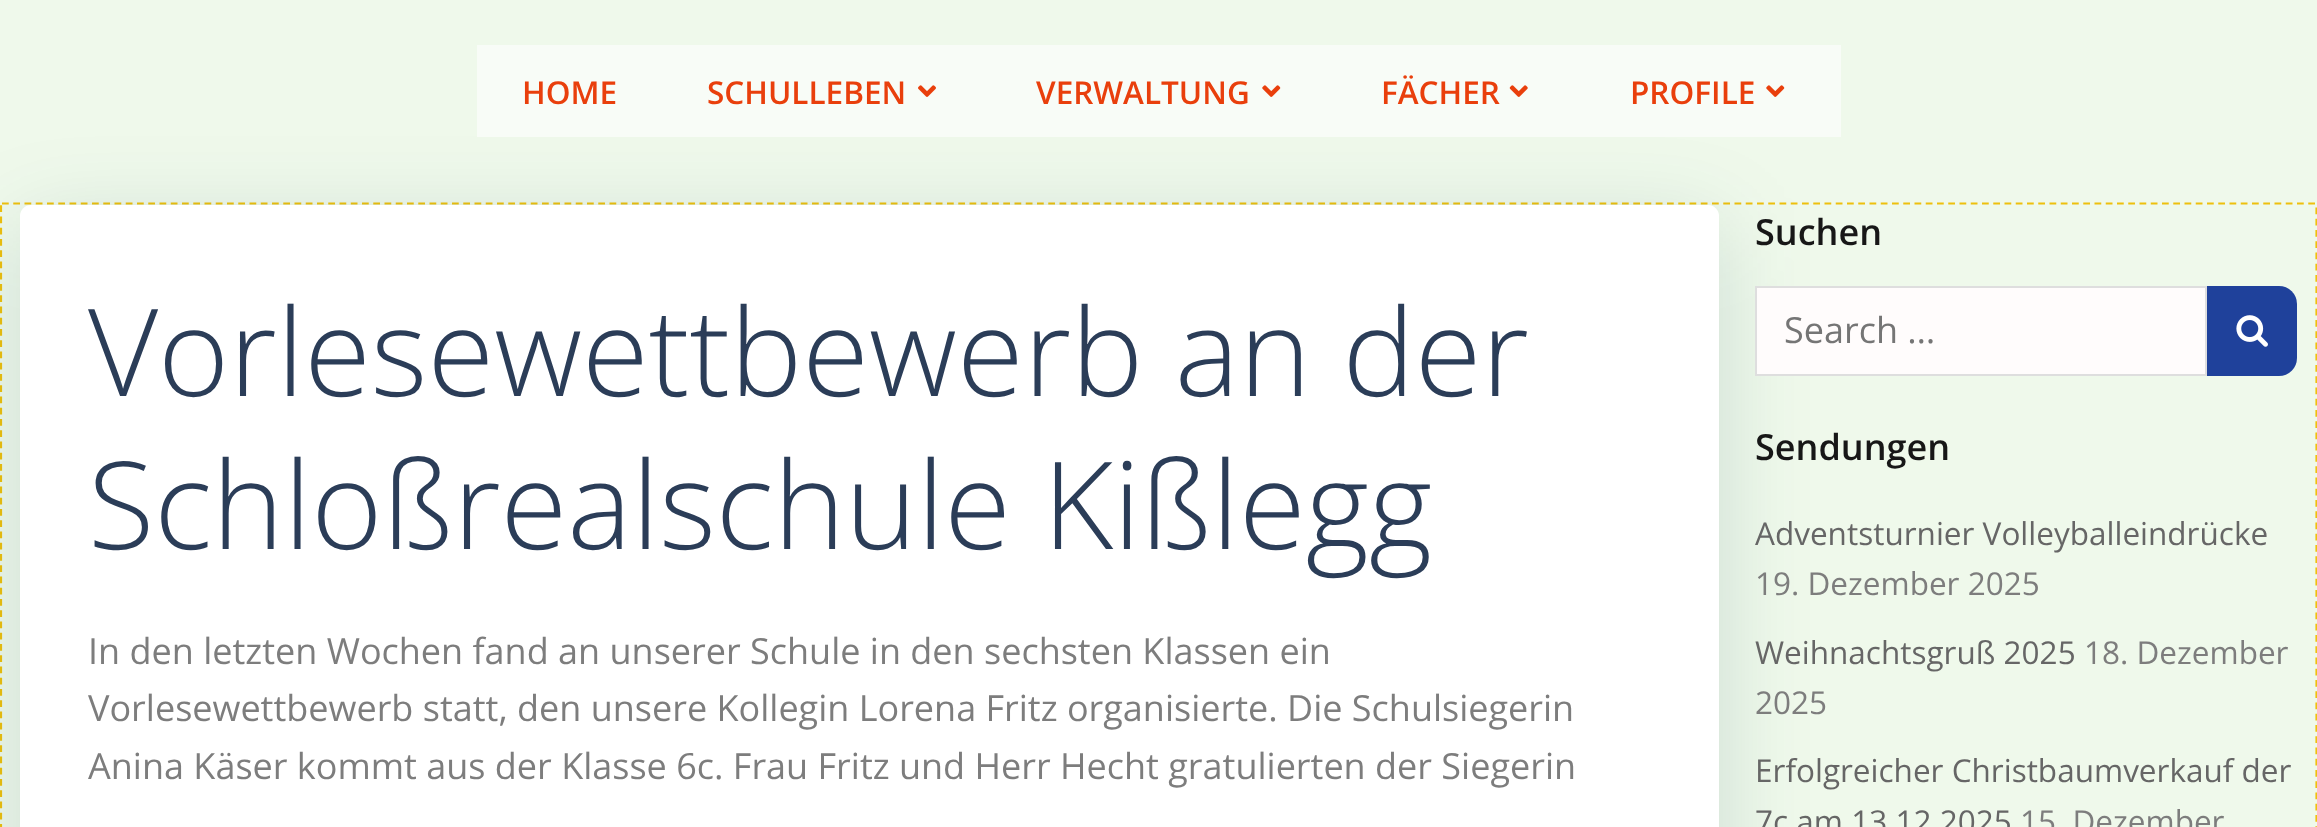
async function draw(canvas) {
  canvas.width = 2317
  canvas.height = 827
  const ctx = canvas.getContext('2d')
  ctx.miterLimit = 4
  ctx.fontKerning = 'normal'
  async function loadImage(src) {
    const img = new Image()
    img.src = src
    await img.decode()
    return img
  }

  ctx.fillStyle = '#eff9eb'
  ctx.fillRect(0, 0, 2317, 827)
  ctx.beginPath()
  ctx.moveTo(2, 203.5)
  ctx.lineTo(2315, 203.5)
  ctx.bezierCurveTo(2316, 203.5, 2316.5, 204, 2316.5, 205)
  ctx.lineTo(2316.5, 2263.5)
  ctx.bezierCurveTo(2316.5, 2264, 2316, 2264.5, 2315, 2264.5)
  ctx.lineTo(2, 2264.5)
  ctx.bezierCurveTo(1.5, 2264.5, 1, 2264, 1, 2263.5)
  ctx.lineTo(1, 205)
  ctx.bezierCurveTo(1, 204, 1.5, 203.5, 2, 203.5)
  ctx.closePath()
  ctx.strokeStyle = '#eec00d'
  ctx.lineWidth = 2.2
  ctx.setLineDash([6.75, 4.5])
  ctx.stroke()
  ctx.fillStyle = '#01334a26'
  ctx.filter = 'blur(45px)'
  ctx.beginPath()
  ctx.roundRect(20, 227, 1699, 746, 11)
  ctx.fill()
  ctx.filter = 'none'
  ctx.fillStyle = '#f8fcf7'
  ctx.fillRect(477, 45, 1364, 92)
  ctx.font = '600 31.5px Open Sans'
  ctx.fillStyle = '#e93f0c'
  ctx.fillText('HOME', 522, 104)
  ctx.fillText('SCHULLEBEN', 707, 104)
  ctx.drawImage(await loadImage('image0.png'), 918, 85, 18, 12)
  ctx.fillText('VERWALTUNG', 1036, 104)
  ctx.drawImage(await loadImage('image1.png'), 1262, 85, 19, 12)
  ctx.fillText('FÄCHER', 1381, 104)
  ctx.drawImage(await loadImage('image2.png'), 1509, 85, 19, 12)
  ctx.fillText('PROFILE', 1630, 104)
  ctx.drawImage(await loadImage('image1.png'), 1766, 85, 19, 12)
  ctx.fillStyle = '#fff'
  ctx.beginPath()
  ctx.roundRect(20, 205, 1699, 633, 11)
  ctx.fill()
  ctx.font = '300 121.5px Open Sans'
  ctx.fillStyle = '#2b3d58'
  ctx.fillText('Vorlesewettbewerb an der', 88, 396)
  ctx.fillText('Schloßrealschule Kißlegg', 88, 549)
  ctx.font = '36px Open Sans'
  ctx.fillStyle = '#7d7d7d'
  ctx.fillText('In den letzten Wochen fand an unserer Schule in den sechsten Klassen ein', 88, 664)
  ctx.fillText('Vorlesewettbewerb statt, den unsere Kollegin Lorena Fritz organisierte. Die Schulsiegerin', 88, 721)
  ctx.fillText('Anina Käser kommt aus der Klasse 6c. Frau Fritz und Herr Hecht gratulierten der Siegerin', 88, 779)
  ctx.font = '600 36px Open Sans'
  ctx.fillStyle = '#171717'
  ctx.fillText('Suchen', 1755, 245)
  ctx.fillStyle = '#fffcfc'
  ctx.beginPath()
  ctx.rect(1756, 287, 450, 88)
  ctx.fill()
  ctx.strokeStyle = '#dedede'
  ctx.lineWidth = 2
  ctx.setLineDash([])
  ctx.stroke()
  ctx.font = '36px Open Sans'
  ctx.fillStyle = '#757575'
  ctx.fillText('Search …', 1784, 343)
  ctx.fillStyle = '#1f419b'
  ctx.beginPath()
  ctx.roundRect(2207, 286, 90, 90, [0, 18, 18, 0])
  ctx.fill()
  ctx.drawImage(await loadImage('image3.png'), 2236, 315, 32, 32)
  ctx.font = '600 36px Open Sans'
  ctx.fillStyle = '#171717'
  ctx.fillText('Sendungen', 1755, 460)
  ctx.font = '31.5px Open Sans'
  ctx.fillStyle = '#666'
  ctx.fillText('Adventsturnier Volleyballeindrücke', 1755, 545)
  ctx.fillStyle = '#7d7d7d'
  ctx.fillText('19. Dezember 2025', 1755, 595)
  ctx.fillStyle = '#666'
  ctx.fillText('Weihnachtsgruß 2025', 1755, 664)
  ctx.fillStyle = '#7d7d7d'
  ctx.fillText('18. Dezember', 2084, 664)
  ctx.fillText('2025', 1755, 714)
  ctx.fillStyle = '#666'
  ctx.fillText('Erfolgreicher Christbaumverkauf der', 1755, 782)
  ctx.fillText('7c am 13.12.2025', 1755, 833)
  ctx.fillStyle = '#7d7d7d'
  ctx.fillText('15. Dezember', 2020, 833)
}

draw(document.querySelector('canvas'))
